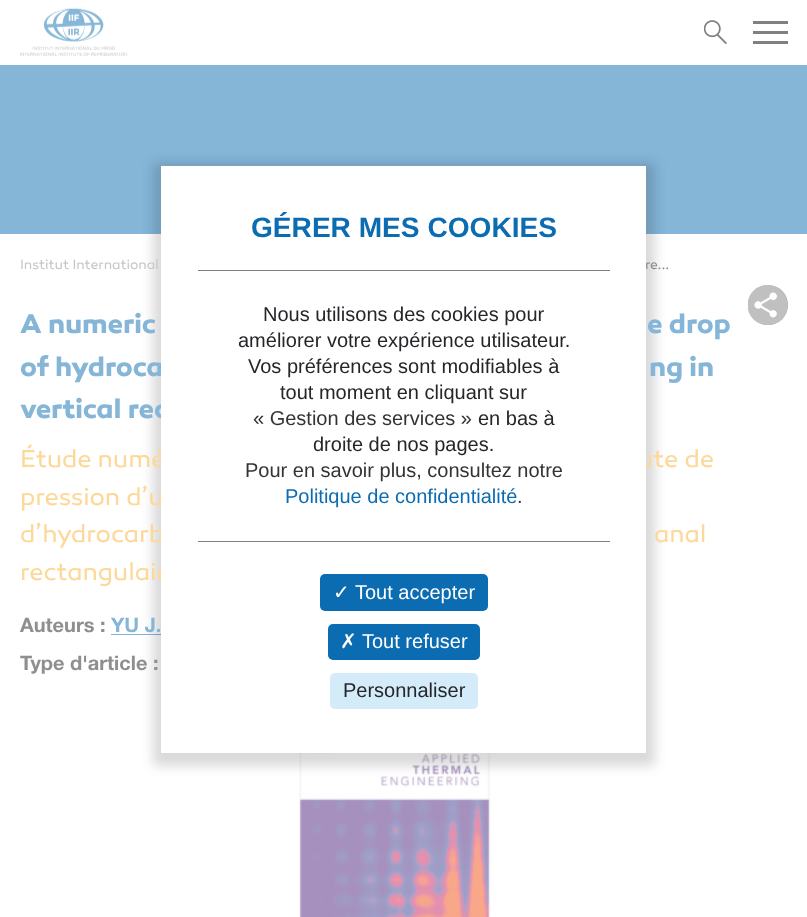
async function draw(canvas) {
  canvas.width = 807
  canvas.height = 917
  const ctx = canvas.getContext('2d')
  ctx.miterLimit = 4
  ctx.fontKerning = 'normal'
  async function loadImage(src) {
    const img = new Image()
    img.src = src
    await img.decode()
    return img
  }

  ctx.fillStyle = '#fff'
  ctx.fillRect(0, 0, 807, 917)
  ctx.drawImage(await loadImage('image0.png'), 20, 8, 108, 48)
  ctx.drawImage(await loadImage('image1.png'), 704, 20, 23, 24)
  ctx.fillStyle = '#808080'
  ctx.fillRect(753, 21, 35, 3)
  ctx.fillRect(753, 31, 35, 3)
  ctx.fillRect(753, 41, 35, 3)
  ctx.fillStyle = '#85b6d8'
  ctx.fillRect(0, 65, 807, 169)
  ctx.fillRect(111, 634, 50, 1)
  ctx.drawImage(await loadImage('image3.png'), 299, 753, 192, 164)
  ctx.fillStyle = '#00000026'
  ctx.filter = 'blur(6px)'
  ctx.beginPath()
  ctx.rect(153, 163, 502, 603)
  ctx.fill()
  ctx.filter = 'none'
  ctx.font = '13.75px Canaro'
  ctx.fillStyle = '#8f8f8f'
  ctx.fillText('re...', 645, 269)
  ctx.font = 'bold 27.5px Canaro'
  ctx.fillStyle = '#85b6d8'
  ctx.fillText('of hydroca', 20, 376)
  ctx.fillText('vertical rec', 20, 418)
  ctx.font = '25px Canaro'
  ctx.fillStyle = '#fcd899'
  ctx.fillText('Étude numé', 20, 467)
  ctx.fillText('ute de', 638, 467)
  ctx.fillText('pression d’u', 20, 505)
  ctx.fillText('d’hydrocarb', 20, 542)
  ctx.fillText('rectangulair', 20, 580)
  ctx.fillStyle = '#fff'
  ctx.fillRect(161, 166, 485, 587)
  ctx.font = 'bold 28.1px Liberation Sans'
  ctx.fillStyle = '#0b6cb1'
  ctx.fillText('GÉRER MES COOKIES', 251, 237)
  ctx.fillStyle = '#808080'
  ctx.fillRect(198, 270, 412, 1)
  ctx.fillRect(198, 541, 412, 1)
  ctx.font = '20px Liberation Sans'
  ctx.fillStyle = '#26262a'
  ctx.fillText('Nous utilisons des cookies pour', 263, 321)
  ctx.fillText('améliorer votre expérience utilisateur.', 238, 347)
  ctx.fillText('Vos préférences sont modifiables à', 248, 373)
  ctx.fillText('tout moment en cliquant sur', 280, 399)
  ctx.fillStyle = '#333'
  ctx.fillText('« Gestion des services »', 253, 425)
  ctx.fillStyle = '#26262a'
  ctx.fillText('en bas à', 478, 425)
  ctx.fillText('droite de nos pages.', 313, 451)
  ctx.fillStyle = '#333'
  ctx.fillText('Pour en savoir plus, consultez notre', 245, 477)
  ctx.fillStyle = '#0b6cb1'
  ctx.fillText('Politique de confidentialité', 285, 503)
  ctx.fillStyle = '#333'
  ctx.fillText('.', 517, 503)
  ctx.fillStyle = '#0b6cb1'
  ctx.beginPath()
  ctx.roundRect(320, 574, 168, 37, 5)
  ctx.fill()
  ctx.font = '20px DejaVu Sans'
  ctx.fillStyle = '#fff'
  ctx.fillText('✓', 333, 599)
  ctx.font = '20px Liberation Sans'
  ctx.fillText('Tout accepter', 355, 599)
  ctx.fillStyle = '#0b6cb1'
  ctx.beginPath()
  ctx.roundRect(328, 624, 152, 36, 5)
  ctx.fill()
  ctx.font = '20px DejaVu Sans'
  ctx.fillStyle = '#fff'
  ctx.fillText('✗', 340, 648)
  ctx.font = '20px Liberation Sans'
  ctx.fillText('Tout refuser', 362, 648)
  ctx.fillStyle = '#d4ebfa'
  ctx.beginPath()
  ctx.roundRect(330, 673, 148, 36, 5)
  ctx.fill()
  ctx.fillStyle = '#26262a'
  ctx.fillText('Personnaliser', 343, 697)
  ctx.font = '13.75px Canaro'
  ctx.fillStyle = '#c7c7c7'
  ctx.fillText('Institut International', 20, 269)
  ctx.fillStyle = '#ababab'
  ctx.beginPath()
  ctx.arc(768, 305, 20, 0, 2 * Math.PI)
  ctx.fill()
  ctx.drawImage(await loadImage('image2.png'), 748, 285, 40, 40)
  ctx.font = 'bold 27.5px Canaro'
  ctx.fillStyle = '#85b6d8'
  ctx.fillText('A numeric', 20, 333)
  ctx.fillText('e drop', 647, 333)
  ctx.fillText('ng in', 649, 376)
  ctx.font = '25px Canaro'
  ctx.fillStyle = '#fcd899'
  ctx.fillText('anal', 654, 542)
  ctx.font = 'bold 20px Helvetica Neue'
  ctx.fillStyle = '#8f8f8f'
  ctx.fillText('Auteurs :', 20, 632)
  ctx.fillStyle = '#85b6d8'
  ctx.fillText('YU J.', 111, 632)
  ctx.fillStyle = '#8f8f8f'
  ctx.fillText('Type d\'article :', 20, 670)
}

draw(document.querySelector('canvas'))
